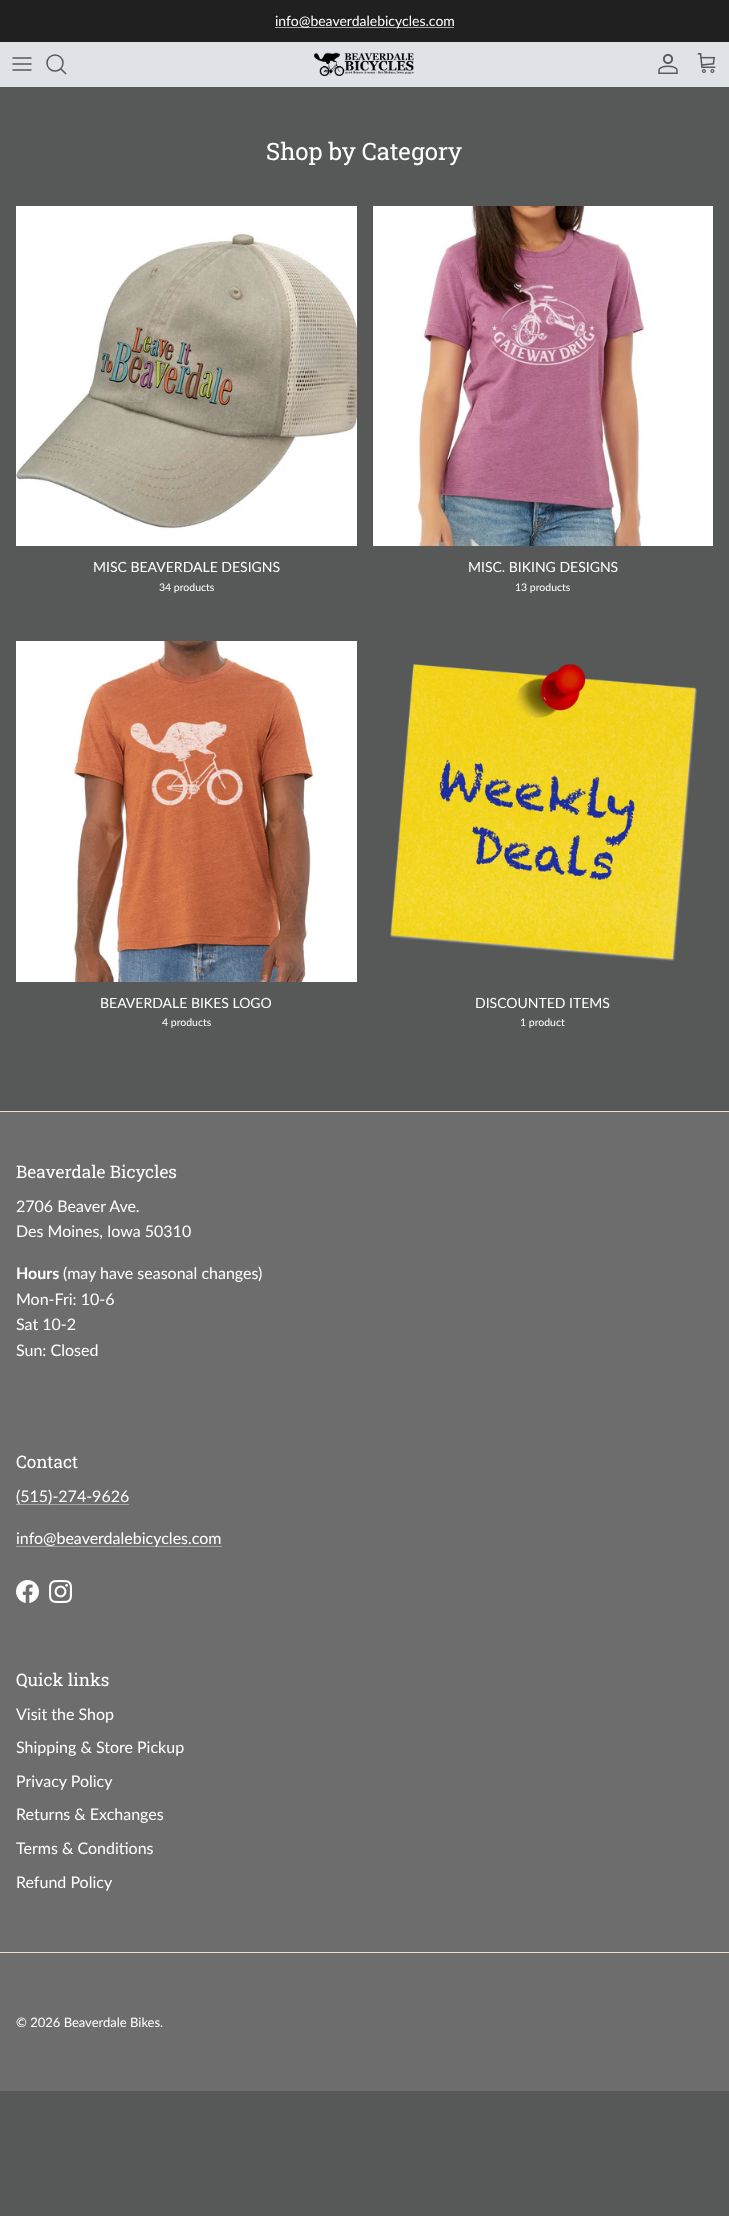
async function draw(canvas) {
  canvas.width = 729
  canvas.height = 2216
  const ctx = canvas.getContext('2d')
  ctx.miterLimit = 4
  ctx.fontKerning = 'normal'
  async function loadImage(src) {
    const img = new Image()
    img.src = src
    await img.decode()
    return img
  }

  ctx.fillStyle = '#575858'
  ctx.fillRect(0, 0, 729, 2216)
  ctx.fillStyle = '#202020'
  ctx.fillRect(0, 0, 729, 42)
  ctx.fillStyle = '#a6a6a6'
  ctx.fillRect(275, 27, 179, 1)
  ctx.font = '14px Lato'
  ctx.fillStyle = '#fff'
  ctx.fillText('info@beaverdalebicycles.com', 275, 26)
  ctx.fillStyle = '#dfe3e8'
  ctx.fillRect(0, 42, 729, 45)
  ctx.beginPath()
  ctx.moveTo(13, 64)
  ctx.lineTo(31, 64)
  ctx.moveTo(13, 58)
  ctx.lineTo(31, 58)
  ctx.moveTo(13, 70)
  ctx.lineTo(31, 70)
  ctx.strokeStyle = '#575858'
  ctx.lineWidth = 1.5
  ctx.lineCap = 'round'
  ctx.lineJoin = 'round'
  ctx.stroke()
  ctx.beginPath()
  ctx.arc(55, 63, 8, 0, 2 * Math.PI)
  ctx.stroke()
  ctx.beginPath()
  ctx.moveTo(61, 69)
  ctx.lineTo(65.5, 73.5)
  ctx.lineCap = 'square'
  ctx.lineJoin = 'miter'
  ctx.stroke()
  ctx.drawImage(await loadImage('image0.png'), 314, 52, 100, 24)
  ctx.drawImage(await loadImage('image1.png'), 658, 54, 20, 20)
  ctx.drawImage(await loadImage('image2.png'), 697, 53, 19, 20)
  ctx.font = '24px Roboto Slab'
  ctx.fillStyle = '#fff'
  ctx.fillText('Shop by Category', 266, 160)
  ctx.drawImage(await loadImage('image3.png'), 16, 206, 341, 340)
  ctx.font = '14px Lato'
  ctx.fillText('MISC BEAVERDALE DESIGNS', 93, 572)
  ctx.font = '10.5px Lato'
  ctx.fillText('34 products', 159, 591)
  ctx.drawImage(await loadImage('image4.png'), 373, 206, 340, 340)
  ctx.font = '14px Lato'
  ctx.fillText('MISC. BIKING DESIGNS', 468, 572)
  ctx.font = '10.5px Lato'
  ctx.fillText('13 products', 515, 591)
  ctx.drawImage(await loadImage('image5.png'), 16, 641, 341, 341)
  ctx.font = '14px Lato'
  ctx.fillText('BEAVERDALE BIKES LOGO', 100, 1008)
  ctx.font = '10.5px Lato'
  ctx.fillText('4 products', 162, 1026)
  ctx.drawImage(await loadImage('image6.png'), 390, 664, 307, 297)
  ctx.font = '14px Lato'
  ctx.fillText('DISCOUNTED ITEMS', 475, 1008)
  ctx.font = '10.5px Lato'
  ctx.fillText('1 product', 520, 1026)
  ctx.fillStyle = '#6e6d6d'
  ctx.fillRect(0, 1112, 729, 979)
  ctx.fillStyle = '#efdfc7'
  ctx.fillRect(0, 1111, 729, 1)
  ctx.font = '17.25px Roboto Slab'
  ctx.fillStyle = '#fff'
  ctx.fillText('Beaverdale Bicycles', 16, 1178)
  ctx.font = '16px Lato'
  ctx.fillText('2706 Beaver Ave.', 16, 1212)
  ctx.fillText('Des Moines, Iowa 50310', 16, 1237)
  ctx.font = 'bold 16px Lato'
  ctx.fillText('Hours', 16, 1279)
  ctx.font = '16px Lato'
  ctx.fillText('(may have seasonal changes)', 63, 1279)
  ctx.fillText('Mon-Fri: 10-6', 16, 1305)
  ctx.fillText('Sat 10-2', 16, 1330)
  ctx.fillText('Sun: Closed', 16, 1356)
  ctx.font = '17.25px Roboto Slab'
  ctx.fillText('Contact', 16, 1468)
  ctx.fillStyle = '#a8a7a7'
  ctx.fillRect(16, 1504, 113, 1)
  ctx.font = '16px Lato'
  ctx.fillStyle = '#fff'
  ctx.fillText('(515)-274-9626', 16, 1502)
  ctx.fillStyle = '#a8a7a7'
  ctx.fillRect(16, 1546, 206, 1)
  ctx.fillStyle = '#fff'
  ctx.fillText('info@beaverdalebicycles.com', 16, 1544)
  ctx.drawImage(await loadImage('image7.png'), 16, 1580, 23, 23)
  ctx.drawImage(await loadImage('image8.png'), 49, 1580, 23, 23)
  ctx.font = '17.25px Roboto Slab'
  ctx.fillText('Quick links', 16, 1686)
  ctx.font = '16px Lato'
  ctx.fillText('Visit the Shop', 16, 1720)
  ctx.fillText('Shipping & Store Pickup', 16, 1753)
  ctx.fillText('Privacy Policy', 16, 1787)
  ctx.fillText('Returns & Exchanges', 16, 1820)
  ctx.fillText('Terms & Conditions', 16, 1854)
  ctx.fillText('Refund Policy', 16, 1888)
  ctx.fillStyle = '#efdfc7'
  ctx.fillRect(0, 1952, 729, 1)
  ctx.font = '13px Lato'
  ctx.fillStyle = '#fff'
  ctx.fillText('© 2026 Beaverdale Bikes.', 16, 2027)
}

draw(document.querySelector('canvas'))
